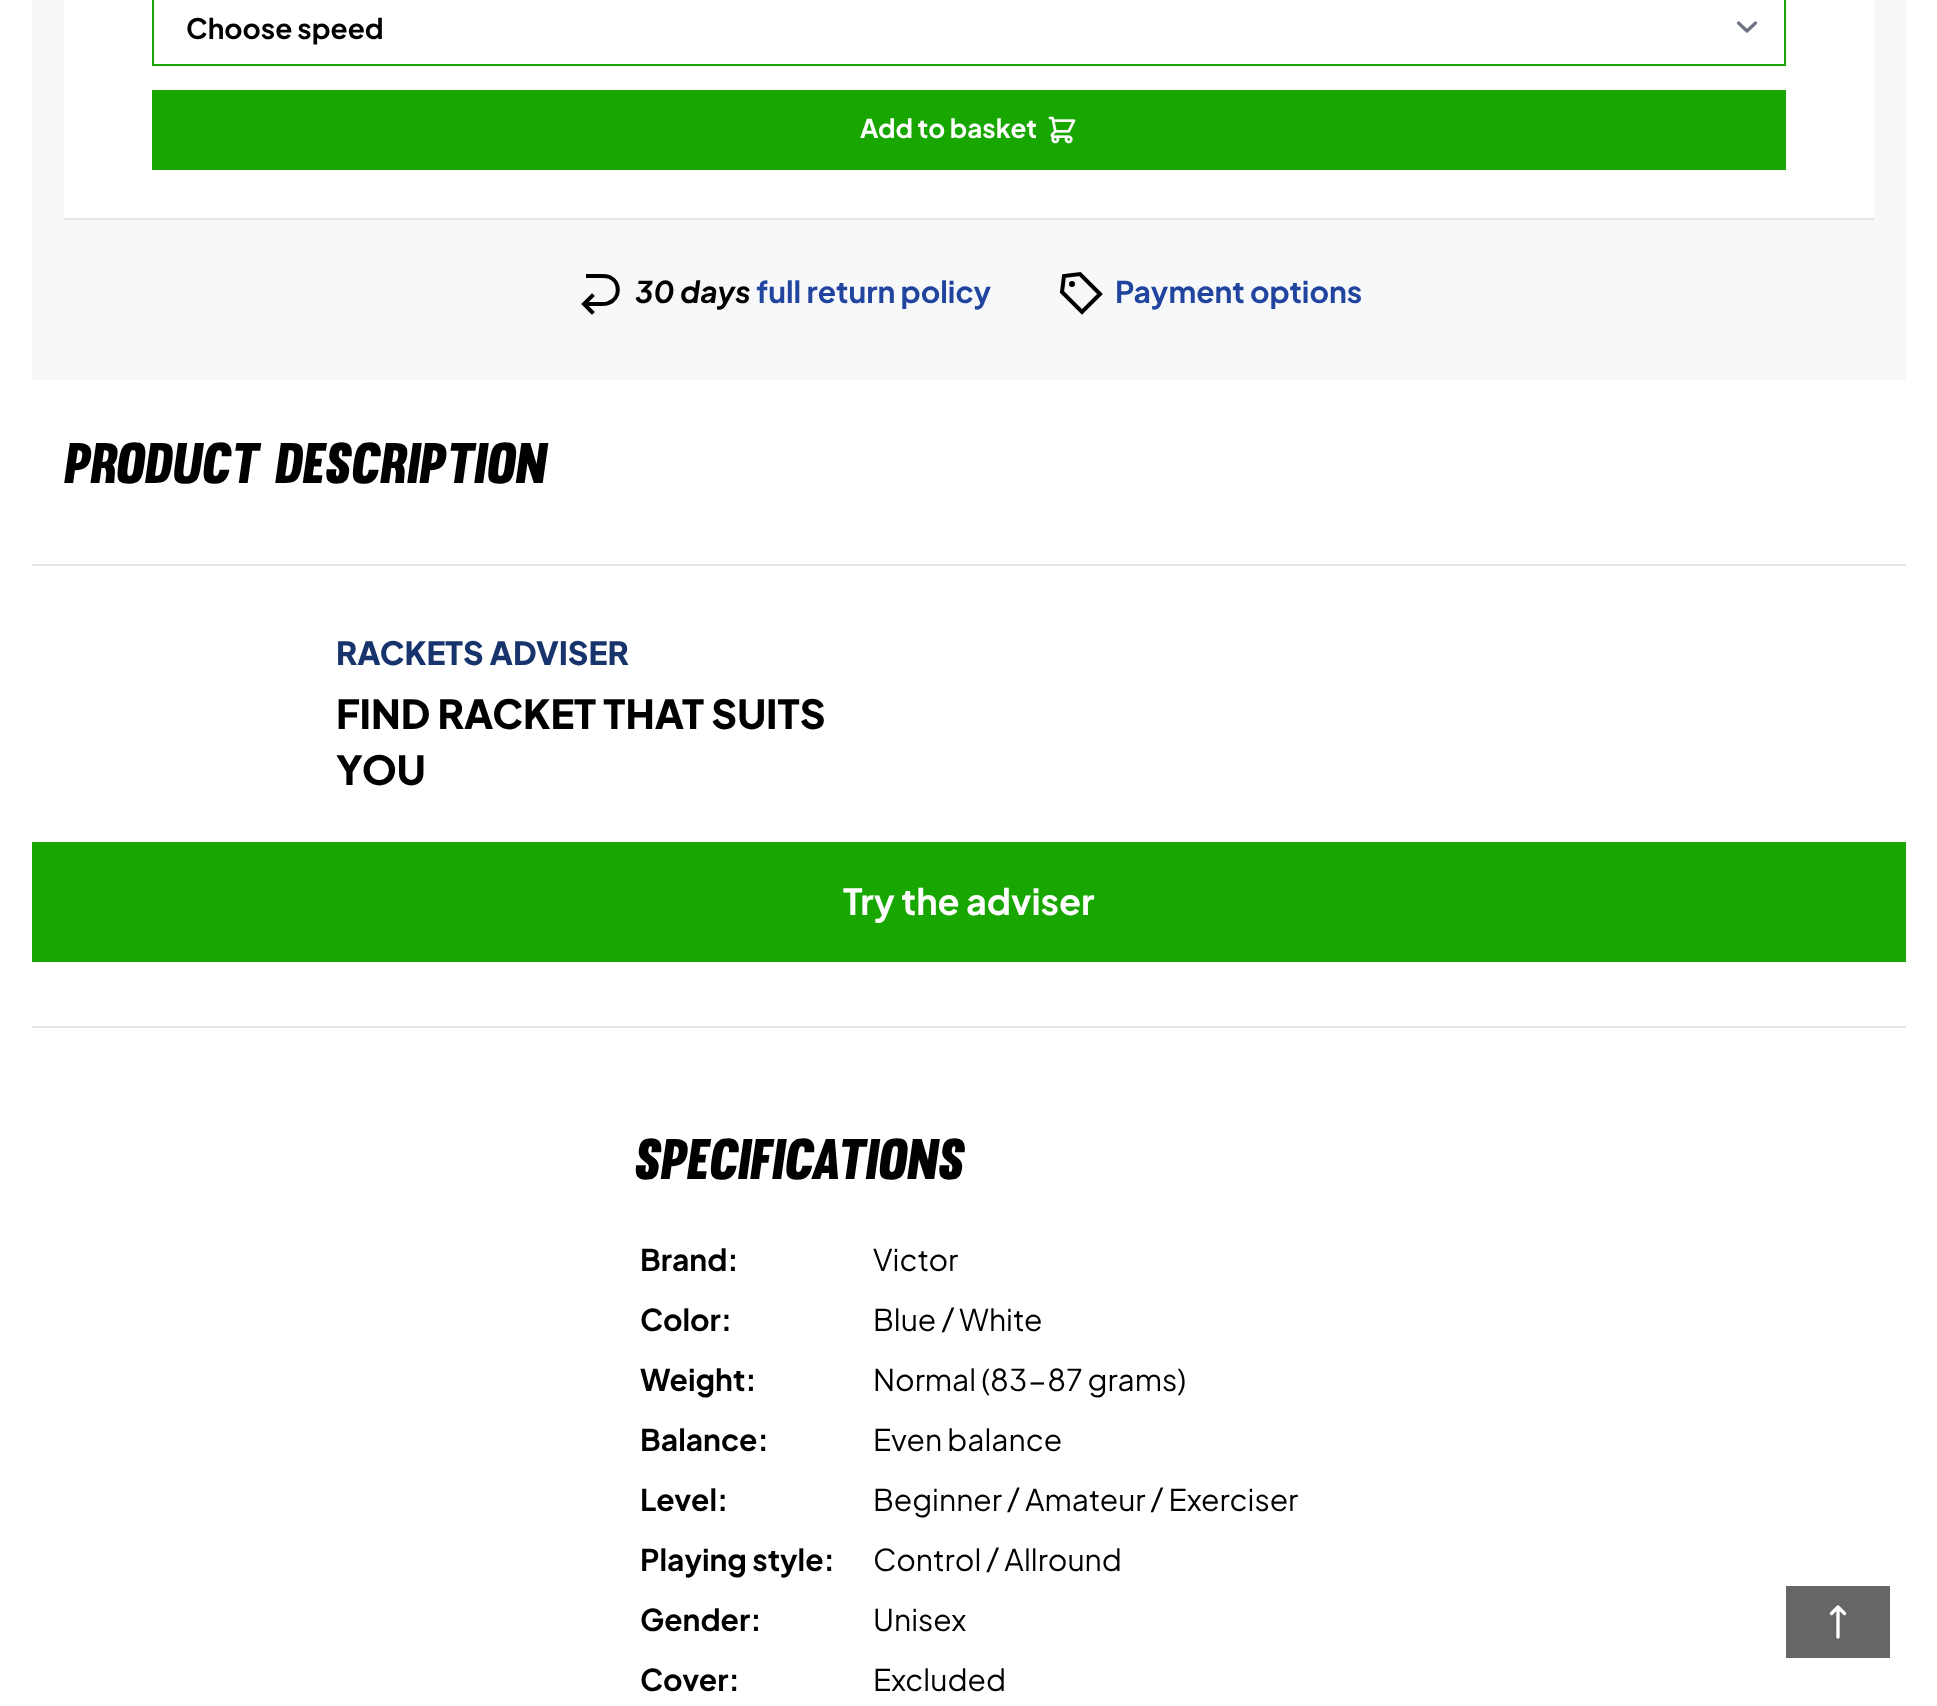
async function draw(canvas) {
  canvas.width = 1937
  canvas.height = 1706
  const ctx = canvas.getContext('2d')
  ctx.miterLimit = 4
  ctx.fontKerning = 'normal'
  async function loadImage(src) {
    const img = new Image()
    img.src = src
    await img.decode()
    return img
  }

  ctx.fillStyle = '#fff'
  ctx.fillRect(0, 0, 1937, 1706)
  ctx.fillStyle = '#f6f8fa'
  ctx.fillRect(32, 0, 1874, 380)
  ctx.fillStyle = '#fff'
  ctx.fillRect(64, 0, 1810, 218)
  ctx.fillStyle = '#e5e5e5'
  ctx.fillRect(64, 218, 1810, 2)
  ctx.beginPath()
  ctx.moveTo(1738.5, 23)
  ctx.lineTo(1747, 31)
  ctx.lineTo(1755.5, 23)
  ctx.strokeStyle = '#6b7280'
  ctx.lineWidth = 3.2
  ctx.lineCap = 'round'
  ctx.lineJoin = 'round'
  ctx.stroke()
  ctx.strokeStyle = '#17a700'
  ctx.lineWidth = 2
  ctx.lineJoin = 'miter'
  ctx.strokeRect(153, -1, 1632, 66)
  ctx.font = 'bold 28px Plus Jakarta Sans'
  ctx.fillStyle = '#000'
  ctx.fillText('Choose speed', 186, 39)
  ctx.fillStyle = '#17a700'
  ctx.fillRect(152, 90, 1634, 80)
  ctx.font = 'bold 26px Plus Jakarta Sans'
  ctx.fillStyle = '#fff'
  ctx.fillText('Add to basket', 860, 138)
  ctx.drawImage(await loadImage('image0.png'), 1048, 116, 28, 28)
  ctx.beginPath()
  ctx.moveTo(588, 276)
  ctx.lineTo(598.5, 276)
  ctx.bezierCurveTo(602.5, 276, 606, 275.5, 609.5, 277)
  ctx.bezierCurveTo(621, 282, 620.5, 299, 608.5, 303)
  ctx.bezierCurveTo(605.5, 304.5, 601.5, 304, 598, 304)
  ctx.lineTo(586, 304)
  ctx.strokeStyle = '#000'
  ctx.lineWidth = 4
  ctx.lineCap = 'square'
  ctx.lineJoin = 'round'
  ctx.stroke()
  ctx.beginPath()
  ctx.moveTo(592, 312)
  ctx.lineTo(584, 304)
  ctx.lineTo(592, 296)
  ctx.lineJoin = 'miter'
  ctx.stroke()
  ctx.font = 'italic bold 30px Plus Jakarta Sans'
  ctx.fillStyle = '#000'
  ctx.fillText('30 days', 635, 303)
  ctx.font = 'bold 30px Plus Jakarta Sans'
  ctx.fillStyle = '#21459f'
  ctx.fillText('full return policy', 756, 303)
  ctx.beginPath()
  ctx.moveTo(1100, 294)
  ctx.lineTo(1082, 312)
  ctx.lineTo(1062, 292)
  ctx.lineTo(1064, 276)
  ctx.lineTo(1080, 274)
  ctx.closePath()
  ctx.lineCap = 'round'
  ctx.stroke()
  ctx.beginPath()
  ctx.moveTo(1072, 284)
  ctx.lineTo(1072, 284)
  ctx.lineJoin = 'round'
  ctx.stroke()
  ctx.beginPath()
  ctx.arc(1072, 284, 1, 0, 2 * Math.PI)
  ctx.stroke()
  ctx.fillText('Payment options', 1115, 303)
  ctx.fillStyle = '#e5e5e5'
  ctx.fillRect(32, 564, 1874, 2)
  ctx.font = 'italic 56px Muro'
  ctx.fillStyle = '#000'
  ctx.fillText('PRODUCT DESCRIPTION', 64, 483)
  ctx.fillStyle = '#e5e5e5'
  ctx.fillRect(32, 1026, 1874, 2)
  ctx.font = '800 32px Plus Jakarta Sans'
  ctx.fillStyle = '#18346d'
  ctx.fillText('RACKETS ADVISER', 336, 665)
  ctx.font = '800 40px Plus Jakarta Sans'
  ctx.fillStyle = '#000'
  ctx.fillText('FIND RACKET THAT SUITS', 336, 729)
  ctx.fillText('YOU', 336, 785)
  ctx.fillStyle = '#17a700'
  ctx.fillRect(32, 842, 1874, 120)
  ctx.font = 'bold 36px Plus Jakarta Sans'
  ctx.fillStyle = '#fff'
  ctx.fillText('Try the adviser', 843, 915)
  ctx.font = 'italic 56px Muro'
  ctx.fillStyle = '#000'
  ctx.fillText('Specifications', 634, 1179)
  ctx.font = 'bold 30px Plus Jakarta Sans'
  ctx.fillText('Brand:', 640, 1271)
  ctx.font = '30px Plus Jakarta Sans'
  ctx.fillText('Victor', 873, 1271)
  ctx.font = 'bold 30px Plus Jakarta Sans'
  ctx.fillText('Color:', 640, 1331)
  ctx.font = '30px Plus Jakarta Sans'
  ctx.fillText('Blue / White', 873, 1331)
  ctx.font = 'bold 30px Plus Jakarta Sans'
  ctx.fillText('Weight:', 640, 1391)
  ctx.font = '30px Plus Jakarta Sans'
  ctx.fillText('Normal (83-87 grams)', 873, 1391)
  ctx.font = 'bold 30px Plus Jakarta Sans'
  ctx.fillText('Balance:', 640, 1451)
  ctx.font = '30px Plus Jakarta Sans'
  ctx.fillText('Even balance', 873, 1451)
  ctx.font = 'bold 30px Plus Jakarta Sans'
  ctx.fillText('Level:', 640, 1511)
  ctx.font = '30px Plus Jakarta Sans'
  ctx.fillText('Beginner / Amateur / Exerciser', 873, 1511)
  ctx.font = 'bold 30px Plus Jakarta Sans'
  ctx.fillText('Playing style:', 640, 1571)
  ctx.font = '30px Plus Jakarta Sans'
  ctx.fillText('Control / Allround', 873, 1571)
  ctx.font = 'bold 30px Plus Jakarta Sans'
  ctx.fillText('Gender:', 640, 1631)
  ctx.font = '30px Plus Jakarta Sans'
  ctx.fillText('Unisex', 873, 1631)
  ctx.font = 'bold 30px Plus Jakarta Sans'
  ctx.fillText('Cover:', 640, 1691)
  ctx.font = '30px Plus Jakarta Sans'
  ctx.fillText('Excluded', 873, 1691)
  ctx.fillStyle = '#666'
  ctx.fillRect(1786, 1586, 104, 72)
  ctx.beginPath()
  ctx.moveTo(1831.5, 1613.5)
  ctx.lineTo(1838, 1607)
  ctx.moveTo(1838, 1607)
  ctx.lineTo(1844.5, 1613.5)
  ctx.moveTo(1838, 1607)
  ctx.lineTo(1838, 1637)
  ctx.strokeStyle = '#fff'
  ctx.lineWidth = 3.3
  ctx.stroke()
}

draw(document.querySelector('canvas'))
